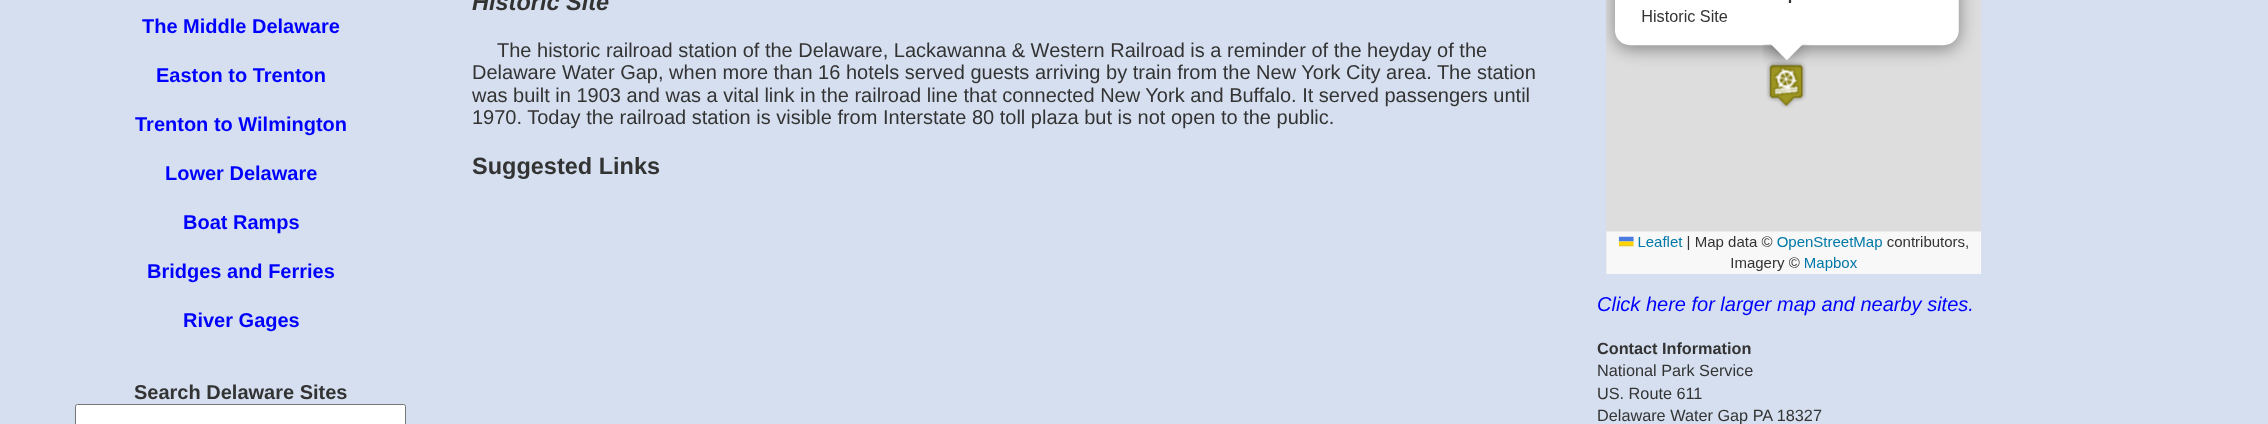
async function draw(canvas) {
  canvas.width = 2268
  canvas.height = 424
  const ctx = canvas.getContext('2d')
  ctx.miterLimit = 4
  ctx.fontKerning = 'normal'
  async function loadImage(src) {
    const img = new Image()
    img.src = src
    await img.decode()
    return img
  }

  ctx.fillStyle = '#d5dfef'
  ctx.fillRect(0, 0, 2268, 424)
  ctx.font = 'bold 20px Liberation Sans'
  ctx.fillStyle = '#00f'
  ctx.fillText('The Middle Delaware', 142, 33)
  ctx.fillText('Easton to Trenton', 156, 82)
  ctx.fillText('Trenton to Wilmington', 135, 131)
  ctx.fillText('Lower Delaware', 165, 180)
  ctx.fillText('Boat Ramps', 183, 229)
  ctx.fillText('Bridges and Ferries', 147, 278)
  ctx.fillText('River Gages', 183, 327)
  ctx.fillStyle = '#333'
  ctx.fillText('Search Delaware Sites', 134, 399)
  ctx.fillStyle = '#fff'
  ctx.beginPath()
  ctx.roundRect(75.5, 404.5, 330, 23, 2)
  ctx.fill()
  ctx.strokeStyle = '#767676'
  ctx.stroke()
  ctx.font = 'italic bold 23.5px Liberation Sans'
  ctx.fillStyle = '#333'
  ctx.fillText('Historic Site', 472, 10)
  ctx.font = '20px Liberation Sans'
  ctx.fillText('The historic railroad station of the Delaware, Lackawanna & Western Railroad is a reminder of the heyday of the', 497, 57)
  ctx.fillText('Delaware Water Gap, when more than 16 hotels served guests arriving by train from the New York City area. The station', 472, 79)
  ctx.fillText('was built in 1903 and was a vital link in the railroad line that connected New York and Buffalo. It served passengers until', 472, 102)
  ctx.fillText('1970. Today the railroad station is visible from Interstate 80 toll plaza but is not open to the public.', 472, 124)
  ctx.font = 'bold 23.5px Liberation Sans'
  ctx.fillText('Suggested Links', 472, 174)
  ctx.drawImage(await loadImage('image0.png'), 1606, 0, 376, 274)
  ctx.font = 'italic 20px Liberation Sans'
  ctx.fillStyle = '#00f'
  ctx.fillText('Click here for larger map and nearby sites.', 1597, 311)
  ctx.font = 'bold 16.25px Liberation Sans'
  ctx.fillStyle = '#333'
  ctx.fillText('Contact Information', 1597, 354)
  ctx.font = '16.25px Liberation Sans'
  ctx.fillText('National Park Service', 1597, 376)
  ctx.fillText('US. Route 611', 1597, 399)
  ctx.fillText('Delaware Water Gap PA 18327', 1597, 421)
}

draw(document.querySelector('canvas'))
